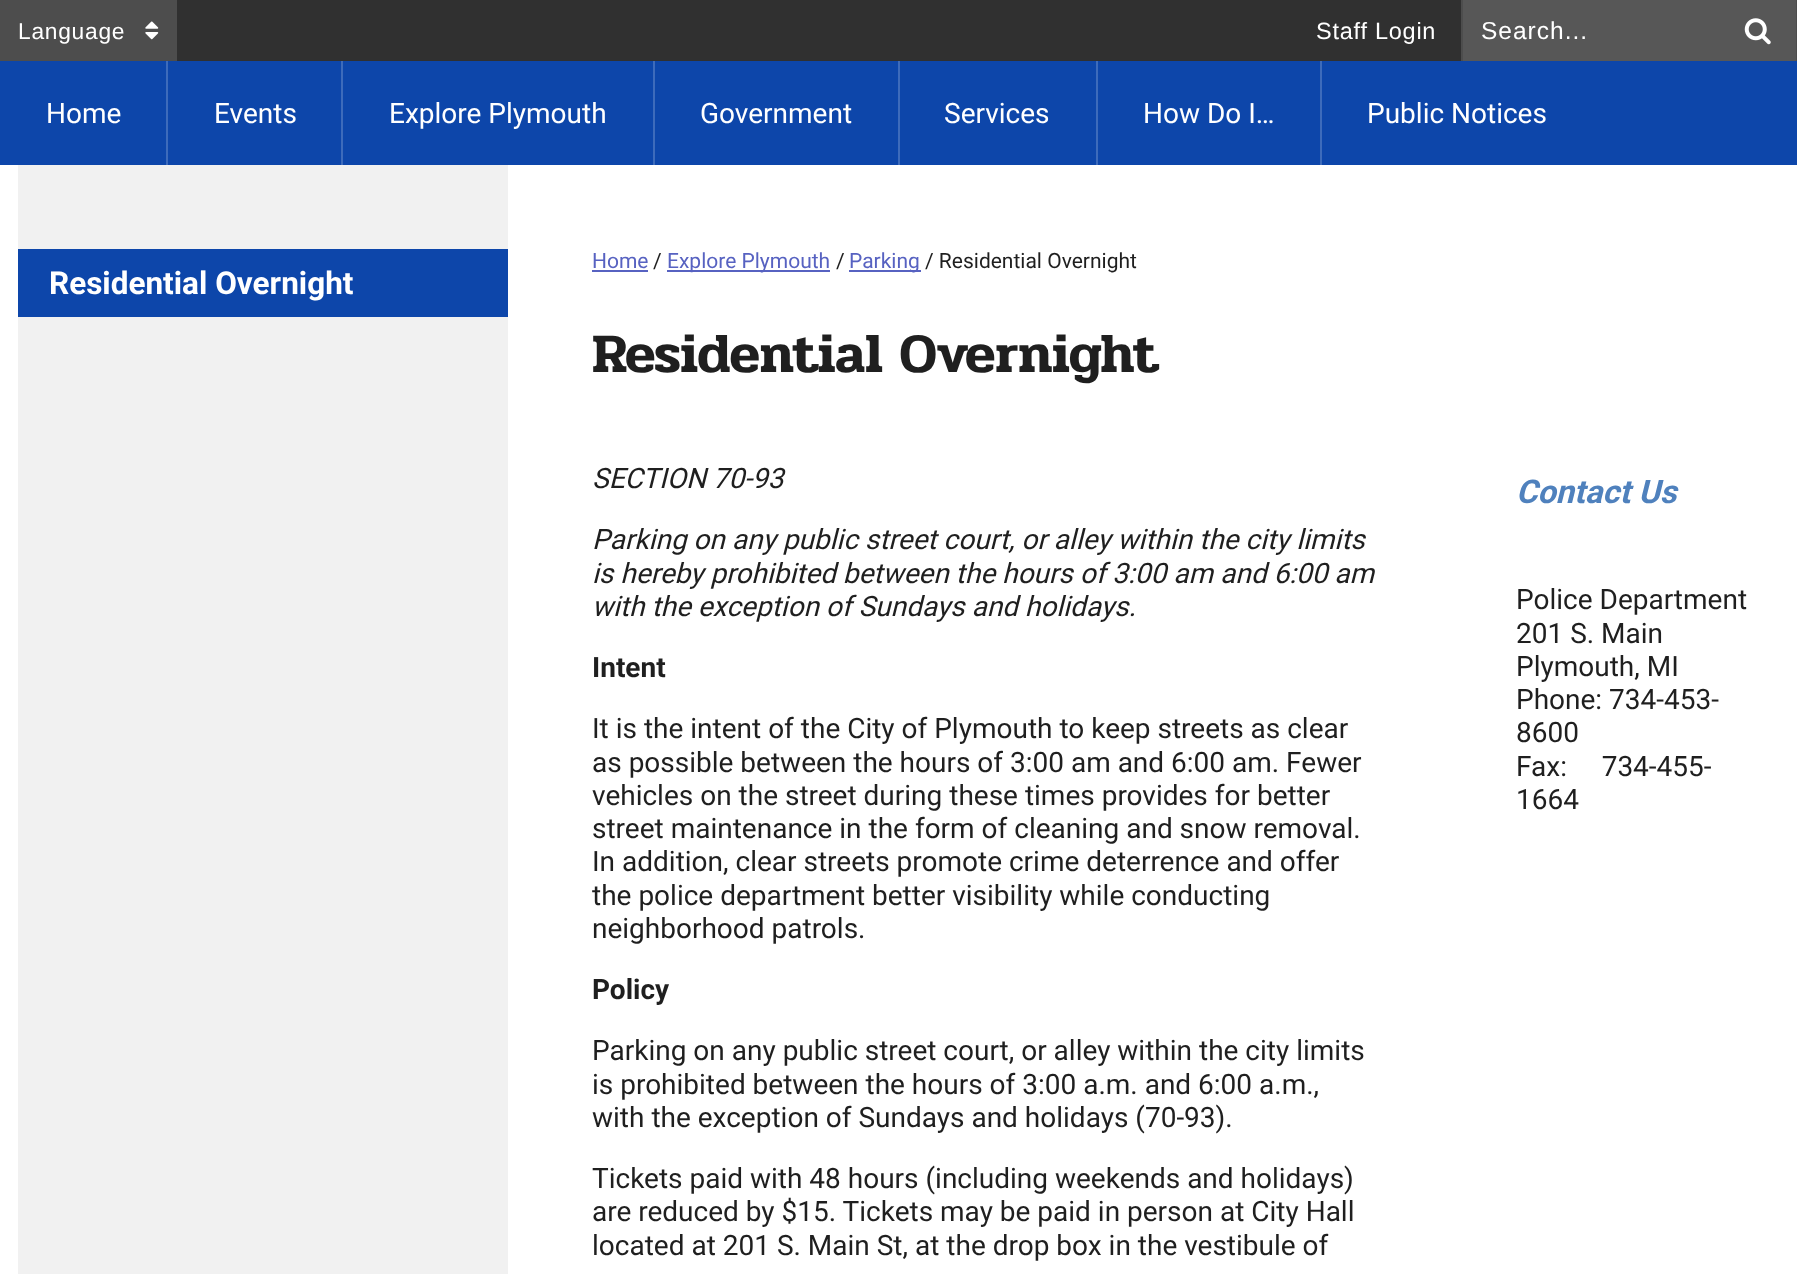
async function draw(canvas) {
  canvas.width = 1797
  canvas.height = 1274
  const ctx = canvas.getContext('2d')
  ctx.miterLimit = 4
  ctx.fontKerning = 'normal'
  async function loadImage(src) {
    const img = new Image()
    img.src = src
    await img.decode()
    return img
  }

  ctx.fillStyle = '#fff'
  ctx.fillRect(0, 0, 1797, 1274)
  ctx.fillStyle = '#303030'
  ctx.fillRect(177, 0, 1284, 61)
  ctx.fillStyle = '#4d4d4d'
  ctx.fillRect(0, 0, 177, 61)
  ctx.letterSpacing = '0.75px'
  ctx.font = '22.75px Liberation Sans'
  ctx.fillStyle = '#fff'
  ctx.fillText('Language', 18, 39)
  ctx.drawImage(await loadImage('image0.png'), 145, 21, 14, 19)
  ctx.fillStyle = '#4d4d4d'
  ctx.fillRect(1461, 0, 2, 61)
  ctx.font = '23.5px Liberation Sans'
  ctx.fillStyle = '#fff'
  ctx.fillText('Staff Login', 1316, 39)
  ctx.fillStyle = '#4d4d4d'
  ctx.fillRect(1796, 0, 1, 61)
  ctx.fillStyle = '#575757'
  ctx.fillRect(1463, 0, 333, 61)
  ctx.letterSpacing = '1px'
  ctx.font = '24.5px Liberation Sans'
  ctx.fillStyle = '#fff'
  ctx.fillText('Search...', 1481, 39)
  ctx.drawImage(await loadImage('image1.png'), 1744, 18, 27, 27)
  ctx.fillStyle = '#0d46aa'
  ctx.fillRect(0, 61, 1797, 104)
  ctx.fillStyle = '#3d6bbb'
  ctx.fillRect(166, 61, 2, 104)
  ctx.letterSpacing = '0px'
  ctx.font = '28px Roboto'
  ctx.fillStyle = '#fff'
  ctx.fillText('Home', 46, 123)
  ctx.fillStyle = '#3d6bbb'
  ctx.fillRect(341, 61, 2, 104)
  ctx.fillStyle = '#fff'
  ctx.fillText('Events', 214, 123)
  ctx.fillStyle = '#3d6bbb'
  ctx.fillRect(653, 61, 2, 104)
  ctx.fillStyle = '#fff'
  ctx.fillText('Explore Plymouth', 389, 123)
  ctx.fillStyle = '#3d6bbb'
  ctx.fillRect(898, 61, 2, 104)
  ctx.fillStyle = '#fff'
  ctx.fillText('Government', 700, 123)
  ctx.fillStyle = '#3d6bbb'
  ctx.fillRect(1096, 61, 2, 104)
  ctx.fillStyle = '#fff'
  ctx.fillText('Services', 944, 123)
  ctx.fillStyle = '#3d6bbb'
  ctx.fillRect(1320, 61, 2, 104)
  ctx.fillStyle = '#fff'
  ctx.fillText('How Do I…', 1143, 123)
  ctx.fillText('Public Notices', 1367, 123)
  ctx.fillStyle = '#f1f1f1'
  ctx.fillRect(18, 165, 490, 1109)
  ctx.fillStyle = '#0d46aa'
  ctx.fillRect(18, 249, 490, 68)
  ctx.font = 'bold 31.5px Roboto'
  ctx.fillStyle = '#fff'
  ctx.fillText('Residential Overnight', 49, 294)
  ctx.font = '21px Roboto'
  ctx.fillStyle = '#5762c1'
  ctx.fillText('Home', 592, 268)
  ctx.fillRect(592, 270, 56, 2)
  ctx.fillStyle = '#1f1f1f'
  ctx.fillText('/', 653, 268)
  ctx.fillStyle = '#5762c1'
  ctx.fillRect(667, 270, 163, 2)
  ctx.fillText('Explore Plymouth', 667, 268)
  ctx.fillStyle = '#1f1f1f'
  ctx.fillText('/', 836, 268)
  ctx.fillStyle = '#5762c1'
  ctx.fillRect(849, 270, 72, 2)
  ctx.fillText('Parking', 849, 268)
  ctx.fillStyle = '#1f1f1f'
  ctx.fillText('/ Residential Overnight', 925, 268)
  ctx.font = '600 56px Pridi'
  ctx.fillText('Residential Overnight', 592, 372)
  ctx.font = 'italic 28px Roboto'
  ctx.fillText('SECTION 70-93', 592, 488)
  ctx.fillText('Parking on any public street court, or alley within the city limits', 592, 549)
  ctx.fillText('is hereby prohibited between the hours of 3:00 am and 6:00 am', 592, 583)
  ctx.fillText('with the exception of Sundays and holidays.', 592, 616)
  ctx.font = 'bold 28px Roboto'
  ctx.fillText('Intent', 592, 677)
  ctx.font = '28px Roboto'
  ctx.fillText('It is the intent of the City of Plymouth to keep streets as clear', 592, 738)
  ctx.fillText('as possible between the hours of 3:00 am and 6:00 am. Fewer', 592, 772)
  ctx.fillText('vehicles on the street during these times provides for better', 592, 805)
  ctx.fillText('street maintenance in the form of cleaning and snow removal.', 592, 838)
  ctx.fillText('In addition, clear streets promote crime deterrence and offer', 592, 871)
  ctx.fillText('the police department better visibility while conducting', 592, 905)
  ctx.fillText('neighborhood patrols.', 592, 938)
  ctx.font = 'bold 28px Roboto'
  ctx.fillText('Policy', 592, 999)
  ctx.font = '28px Roboto'
  ctx.fillText('Parking on any public street court, or alley within the city limits', 592, 1060)
  ctx.fillText('is prohibited between the hours of 3:00 a.m. and 6:00 a.m.,', 592, 1094)
  ctx.fillText('with the exception of Sundays and holidays (70-93).', 592, 1127)
  ctx.fillText('Tickets paid with 48 hours (including weekends and holidays)', 592, 1188)
  ctx.fillText('are reduced by $15. Tickets may be paid in person at City Hall', 592, 1221)
  ctx.fillText('located at 201 S. Main St, at the drop box in the vestibule of', 592, 1255)
  ctx.font = 'italic bold 32.5px Roboto'
  ctx.fillStyle = '#4f81bd'
  ctx.fillText('Contact Us', 1516, 503)
  ctx.font = '28px Roboto'
  ctx.fillStyle = '#1f1f1f'
  ctx.fillText('Police Department', 1516, 609)
  ctx.fillText('201 S. Main', 1516, 643)
  ctx.fillText('Plymouth, MI', 1516, 676)
  ctx.fillText('Phone: 734-453-', 1516, 709)
  ctx.fillText('8600', 1516, 742)
  ctx.fillText('Fax:     734-455-', 1516, 776)
  ctx.fillText('1664', 1516, 809)
}

draw(document.querySelector('canvas'))
